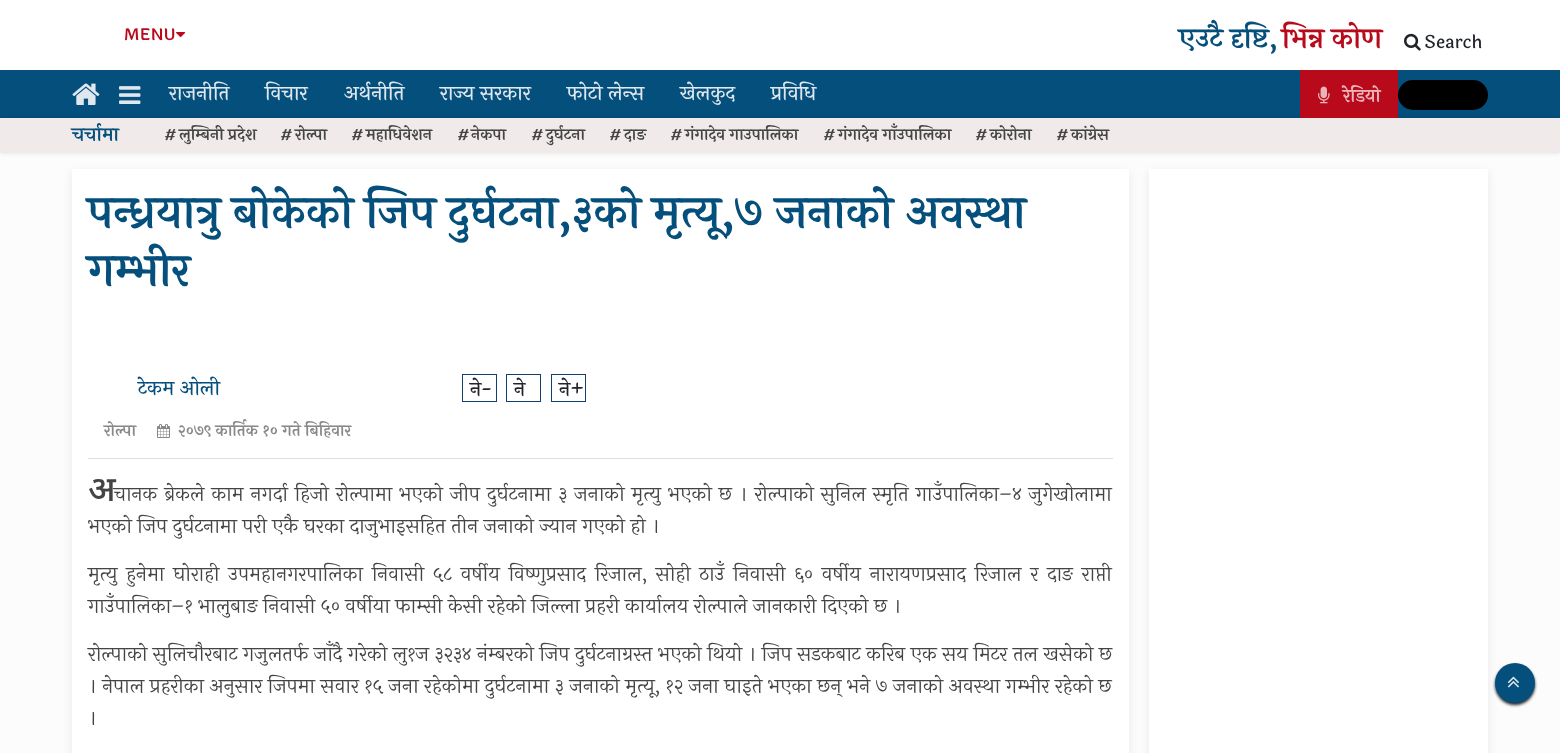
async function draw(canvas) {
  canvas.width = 1560
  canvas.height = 753
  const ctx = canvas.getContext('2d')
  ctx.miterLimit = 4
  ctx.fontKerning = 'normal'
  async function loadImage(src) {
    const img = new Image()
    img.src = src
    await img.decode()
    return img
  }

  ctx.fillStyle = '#fcfcfc'
  ctx.fillRect(0, 0, 1560, 753)
  ctx.fillStyle = '#fff'
  ctx.fillRect(0, 0, 1560, 70)
  ctx.font = '600 16px Laila'
  ctx.fillStyle = '#b90a1b'
  ctx.fillText('MENU', 124, 40)
  ctx.drawImage(await loadImage('image0.png'), 176, 32, 10, 6)
  ctx.font = '600 28px Laila'
  ctx.fillStyle = '#054f7d'
  ctx.fillText('एउटै दृष्टि,', 1179, 48)
  ctx.fillStyle = '#b90a1b'
  ctx.fillText('भिन्न कोण', 1282, 48)
  ctx.drawImage(await loadImage('image1.png'), 1404, 33, 17, 18)
  ctx.font = '500 18px Laila'
  ctx.fillStyle = '#212529'
  ctx.fillText('Search', 1424, 48)
  ctx.fillStyle = '#054f7d'
  ctx.fillRect(0, 70, 1560, 48)
  ctx.drawImage(await loadImage('image2.png'), 72, 83, 28, 22)
  ctx.drawImage(await loadImage('image3.png'), 119, 86, 22, 18)
  ctx.font = '500 20px Laila'
  ctx.fillStyle = '#dfe8ee'
  ctx.fillText('राजनीति', 169, 100)
  ctx.fillText('विचार', 265, 100)
  ctx.fillText('अर्थनीति', 344, 100)
  ctx.fillText('राज्य सरकार', 440, 100)
  ctx.fillText('फोटो लेन्स', 567, 100)
  ctx.fillText('खेलकुद', 680, 100)
  ctx.fillText('प्रविधि', 771, 100)
  ctx.fillStyle = '#0000001a'
  ctx.filter = 'blur(2.5px)'
  ctx.beginPath()
  ctx.rect(0, 118, 1560, 35)
  ctx.fill()
  ctx.filter = 'none'
  ctx.fillStyle = '#b90a1b'
  ctx.fillRect(1300, 70, 98, 48)
  ctx.drawImage(await loadImage('image4.png'), 1318, 86, 12, 18)
  ctx.font = '600 18px Laila'
  ctx.fillStyle = '#eab6bb'
  ctx.fillText('रेडियो', 1343, 102)
  ctx.fillStyle = '#000'
  ctx.beginPath()
  ctx.roundRect(1398, 80, 90, 30, 15)
  ctx.fill()
  ctx.fillStyle = '#f1eaea'
  ctx.fillRect(0, 118, 1560, 35)
  ctx.font = '600 19px Laila'
  ctx.fillStyle = '#054f7d'
  ctx.fillText('चर्चामा', 72, 141)
  ctx.font = '600 15px Laila'
  ctx.fillStyle = '#444'
  ctx.fillText('#', 164, 140)
  ctx.font = '600 16px Laila'
  ctx.fillText('लुम्बिनी प्रदेश', 179, 140)
  ctx.font = '600 15px Laila'
  ctx.fillText('#', 280, 140)
  ctx.font = '600 16px Laila'
  ctx.fillText('रोल्पा', 295, 140)
  ctx.font = '600 15px Laila'
  ctx.fillText('#', 351, 140)
  ctx.font = '600 16px Laila'
  ctx.fillText('महाधिवेशन', 366, 140)
  ctx.font = '600 15px Laila'
  ctx.fillText('#', 457, 140)
  ctx.font = '600 16px Laila'
  ctx.fillText('नेकपा', 471, 140)
  ctx.font = '600 15px Laila'
  ctx.fillText('#', 531, 140)
  ctx.font = '600 16px Laila'
  ctx.fillText('दुर्घटना', 546, 140)
  ctx.font = '600 15px Laila'
  ctx.fillText('#', 609, 140)
  ctx.font = '600 16px Laila'
  ctx.fillText('दाङ', 624, 140)
  ctx.font = '600 15px Laila'
  ctx.fillText('#', 670, 140)
  ctx.font = '600 16px Laila'
  ctx.fillText('गंगादेव गाउपालिका', 685, 140)
  ctx.font = '600 15px Laila'
  ctx.fillText('#', 823, 140)
  ctx.font = '600 16px Laila'
  ctx.fillText('गंगादेव गाँउपालिका', 838, 140)
  ctx.font = '600 15px Laila'
  ctx.fillText('#', 975, 140)
  ctx.font = '600 16px Laila'
  ctx.fillText('कोरोना', 990, 140)
  ctx.font = '600 15px Laila'
  ctx.fillText('#', 1056, 140)
  ctx.font = '600 16px Laila'
  ctx.fillText('कांग्रेस', 1071, 140)
  ctx.fillStyle = '#00000014'
  ctx.filter = 'blur(5px)'
  ctx.beginPath()
  ctx.rect(72, 172, 1057, 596)
  ctx.fill()
  ctx.filter = 'none'
  ctx.fillStyle = '#fff'
  ctx.fillRect(72, 169, 1057, 584)
  ctx.font = '600 45px Laila'
  ctx.fillStyle = '#054f7d'
  ctx.fillText('पन्ध्रयात्रु बोकेको जिप दुर्घटना,३को मृत्यू,७ जनाको अवस्था', 88, 228)
  ctx.fillText('गम्भीर', 88, 286)
  ctx.font = '500 20px Laila'
  ctx.fillText('टेकम ओली', 138, 395)
  ctx.strokeStyle = '#113e6f'
  ctx.strokeRect(462.5, 374.5, 34, 27)
  ctx.fillStyle = '#212529'
  ctx.fillText('ने-', 470, 396)
  ctx.strokeRect(506.5, 374.5, 34, 27)
  ctx.fillText('ने', 514, 396)
  ctx.strokeRect(551.5, 374.5, 34, 27)
  ctx.fillText('ने+', 559, 396)
  ctx.font = '600 16px Laila'
  ctx.fillStyle = '#888'
  ctx.fillText('रोल्पा', 104, 436)
  ctx.drawImage(await loadImage('image5.png'), 157, 424, 13, 14)
  ctx.fillText('२०७९ कार्तिक १० गते बिहिवार', 178, 436)
  ctx.fillStyle = '#ddd'
  ctx.fillRect(88, 458, 1025, 1)
  ctx.font = '500 35px Noto Sans'
  ctx.fillStyle = '#444'
  ctx.fillText('अ', 88, 501)
  ctx.wordSpacing = '1.5px'
  ctx.font = '20px Laila'
  ctx.fillText('चानक ब्रेकले काम नगर्दा हिजो रोल्पामा भएको जीप दुर्घटनामा ३ जनाको मृत्यु भएको छ । रोल्पाको सुनिल स्मृति गाउँपालिका–४ जुगेखोलामा', 114, 501)
  ctx.wordSpacing = '0px'
  ctx.fillText('भएको जिप दुर्घटनामा परी एकै घरका दाजुभाइसहित तीन जनाको ज्यान गएको हो ।', 88, 533)
  ctx.wordSpacing = '3.4px'
  ctx.fillText('मृत्यु हुनेमा घोराही उपमहानगरपालिका निवासी ५८ वर्षीय विष्णुप्रसाद रिजाल, सोही ठाउँ निवासी ६० वर्षीय नारायणप्रसाद रिजाल र दाङ राप्ती', 88, 581)
  ctx.wordSpacing = '0px'
  ctx.fillText('गाउँपालिका–१ भालुबाङ निवासी ५० वर्षीया फाम्सी केसी रहेको जिल्ला प्रहरी कार्यालय रोल्पाले जानकारी दिएको छ ।', 88, 613)
  ctx.fillText('रोल्पाको सुलिचौरबाट गजुलतर्फ जाँदै गरेको लु१ज ३२३४ नंम्बरको जिप दुर्घटनाग्रस्त भएको थियो । जिप सडकबाट करिब एक सय मिटर तल खसेको छ', 88, 661)
  ctx.wordSpacing = '0.1px'
  ctx.fillText('। नेपाल प्रहरीका अनुसार जिपमा सवार १५ जना रहेकोमा दुर्घटनामा ३ जनाको मृत्यू, १२ जना घाइते भएका छन् भने ७ जनाको अवस्था गम्भीर रहेको छ', 88, 693)
  ctx.wordSpacing = '0px'
  ctx.fillText('।', 88, 725)
  ctx.fillStyle = '#00000014'
  ctx.filter = 'blur(5px)'
  ctx.beginPath()
  ctx.rect(1149, 172, 339, 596)
  ctx.fill()
  ctx.filter = 'none'
  ctx.fillStyle = '#fff'
  ctx.fillRect(1149, 169, 339, 584)
  ctx.fillStyle = '#212529'
  ctx.filter = 'blur(1.5px)'
  ctx.beginPath()
  ctx.roundRect(1495, 665, 40, 40, 20)
  ctx.fill()
  ctx.filter = 'none'
  ctx.fillStyle = '#054f7d'
  ctx.beginPath()
  ctx.arc(1515, 683, 20, 0, 2 * Math.PI)
  ctx.fill()
  ctx.drawImage(await loadImage('image6.png'), 1507, 676, 12, 12)
}

draw(document.querySelector('canvas'))
